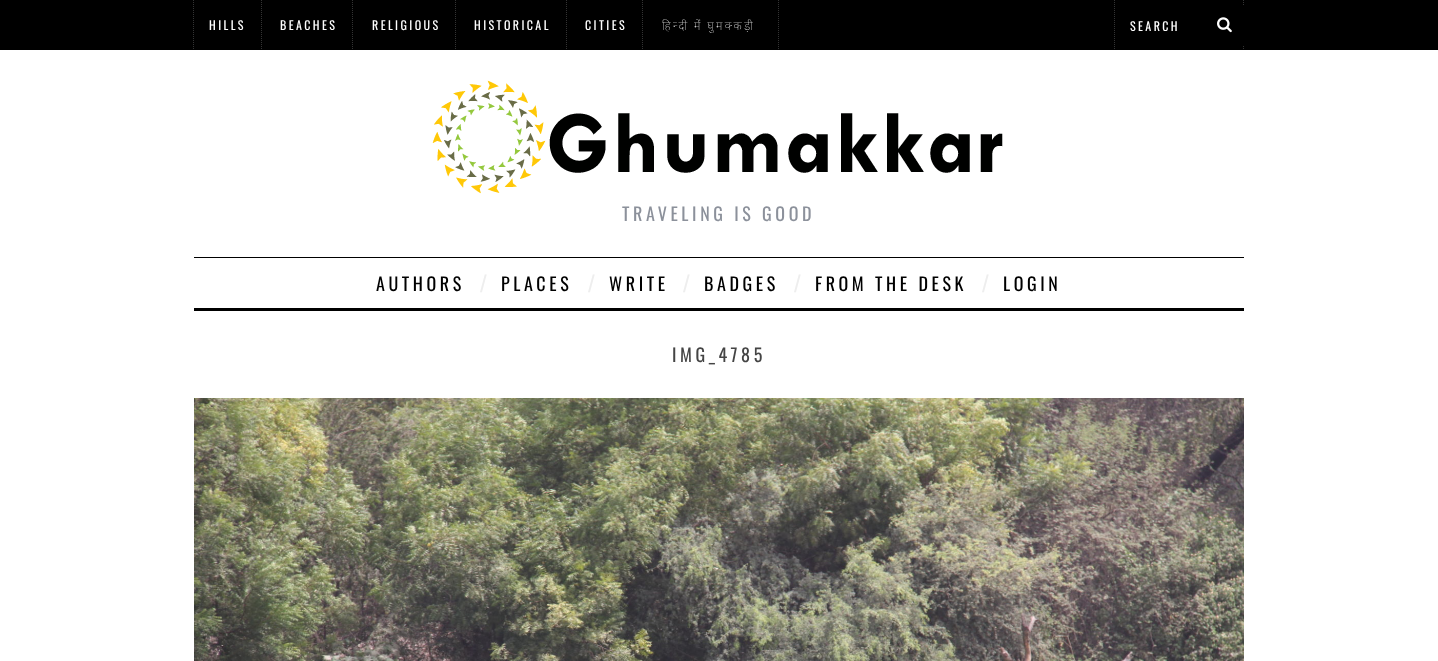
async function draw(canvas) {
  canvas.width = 1438
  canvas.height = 661
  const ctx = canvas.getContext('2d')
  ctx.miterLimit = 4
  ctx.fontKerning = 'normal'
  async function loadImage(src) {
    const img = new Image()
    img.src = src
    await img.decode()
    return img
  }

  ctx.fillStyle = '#fff'
  ctx.fillRect(0, 0, 1438, 661)
  ctx.fillStyle = '#000'
  ctx.fillRect(0, 0, 1438, 50)
  ctx.beginPath()
  ctx.moveTo(261.5, 0)
  ctx.lineTo(261.5, 50)
  ctx.strokeStyle = '#333'
  ctx.setLineDash([1, 1])
  ctx.stroke()
  ctx.beginPath()
  ctx.moveTo(193.5, 0)
  ctx.lineTo(193.5, 50)
  ctx.stroke()
  ctx.letterSpacing = '2.4px'
  ctx.font = '12px Oswald'
  ctx.fillStyle = '#fff'
  ctx.fillText('HILLS', 209, 30)
  ctx.beginPath()
  ctx.moveTo(352.5, 0)
  ctx.lineTo(352.5, 50)
  ctx.stroke()
  ctx.fillText('BEACHES', 280, 30)
  ctx.beginPath()
  ctx.moveTo(455.5, 0)
  ctx.lineTo(455.5, 50)
  ctx.stroke()
  ctx.fillText('RELIGIOUS', 372, 30)
  ctx.beginPath()
  ctx.moveTo(566.5, 0)
  ctx.lineTo(566.5, 50)
  ctx.stroke()
  ctx.fillText('HISTORICAL', 474, 30)
  ctx.beginPath()
  ctx.moveTo(642.5, 0)
  ctx.lineTo(642.5, 50)
  ctx.stroke()
  ctx.fillText('CITIES', 585, 30)
  ctx.beginPath()
  ctx.moveTo(778.5, 0)
  ctx.lineTo(778.5, 50)
  ctx.stroke()
  ctx.wordSpacing = '-1px'
  ctx.font = '100 12px Noto Sans'
  ctx.fillText('हिन्दी में घुमक्कड़ी', 662, 30)
  ctx.beginPath()
  ctx.moveTo(1243.5, 0)
  ctx.lineTo(1243.5, 50)
  ctx.stroke()
  ctx.beginPath()
  ctx.moveTo(1114.5, 0)
  ctx.lineTo(1114.5, 50)
  ctx.stroke()
  ctx.wordSpacing = '0px'
  ctx.font = '12px Oswald'
  ctx.fillText('SEARCH', 1130, 31)
  ctx.fillStyle = '#000'
  ctx.fillRect(1243, 6, 1, 39)
  ctx.drawImage(await loadImage('image0.png'), 1217, 17, 15, 16)
  ctx.drawImage(await loadImage('image1.png'), 432, 80, 571, 114)
  ctx.letterSpacing = '3.6px'
  ctx.font = '18px Oswald'
  ctx.fillStyle = '#8c919b'
  ctx.fillText('TRAVELING IS GOOD', 622, 221)
  ctx.fillStyle = '#000'
  ctx.fillRect(194, 257, 1050, 1)
  ctx.fillRect(194, 308, 1050, 3)
  ctx.fillText('AUTHORS', 376, 291)
  ctx.font = '24px Liberation Sans'
  ctx.fillStyle = '#eee'
  ctx.fillText('/', 480, 292)
  ctx.font = '18px Oswald'
  ctx.fillStyle = '#000'
  ctx.fillText('PLACES', 501, 291)
  ctx.font = '24px Liberation Sans'
  ctx.fillStyle = '#eee'
  ctx.fillText('/', 588, 292)
  ctx.font = '18px Oswald'
  ctx.fillStyle = '#000'
  ctx.fillText('WRITE', 609, 291)
  ctx.font = '24px Liberation Sans'
  ctx.fillStyle = '#eee'
  ctx.fillText('/', 683, 292)
  ctx.font = '18px Oswald'
  ctx.fillStyle = '#000'
  ctx.fillText('BADGES', 704, 291)
  ctx.font = '24px Liberation Sans'
  ctx.fillStyle = '#eee'
  ctx.fillText('/', 794, 292)
  ctx.font = '18px Oswald'
  ctx.fillStyle = '#000'
  ctx.fillText('FROM THE DESK', 815, 291)
  ctx.font = '24px Liberation Sans'
  ctx.fillStyle = '#eee'
  ctx.fillText('/', 982, 292)
  ctx.font = '18px Oswald'
  ctx.fillStyle = '#000'
  ctx.fillText('LOGIN', 1003, 291)
  ctx.fillStyle = '#444'
  ctx.fillText('IMG_4785', 672, 362)
  ctx.drawImage(await loadImage('image2.png'), 194, 398, 1050, 263)
}

draw(document.querySelector('canvas'))
